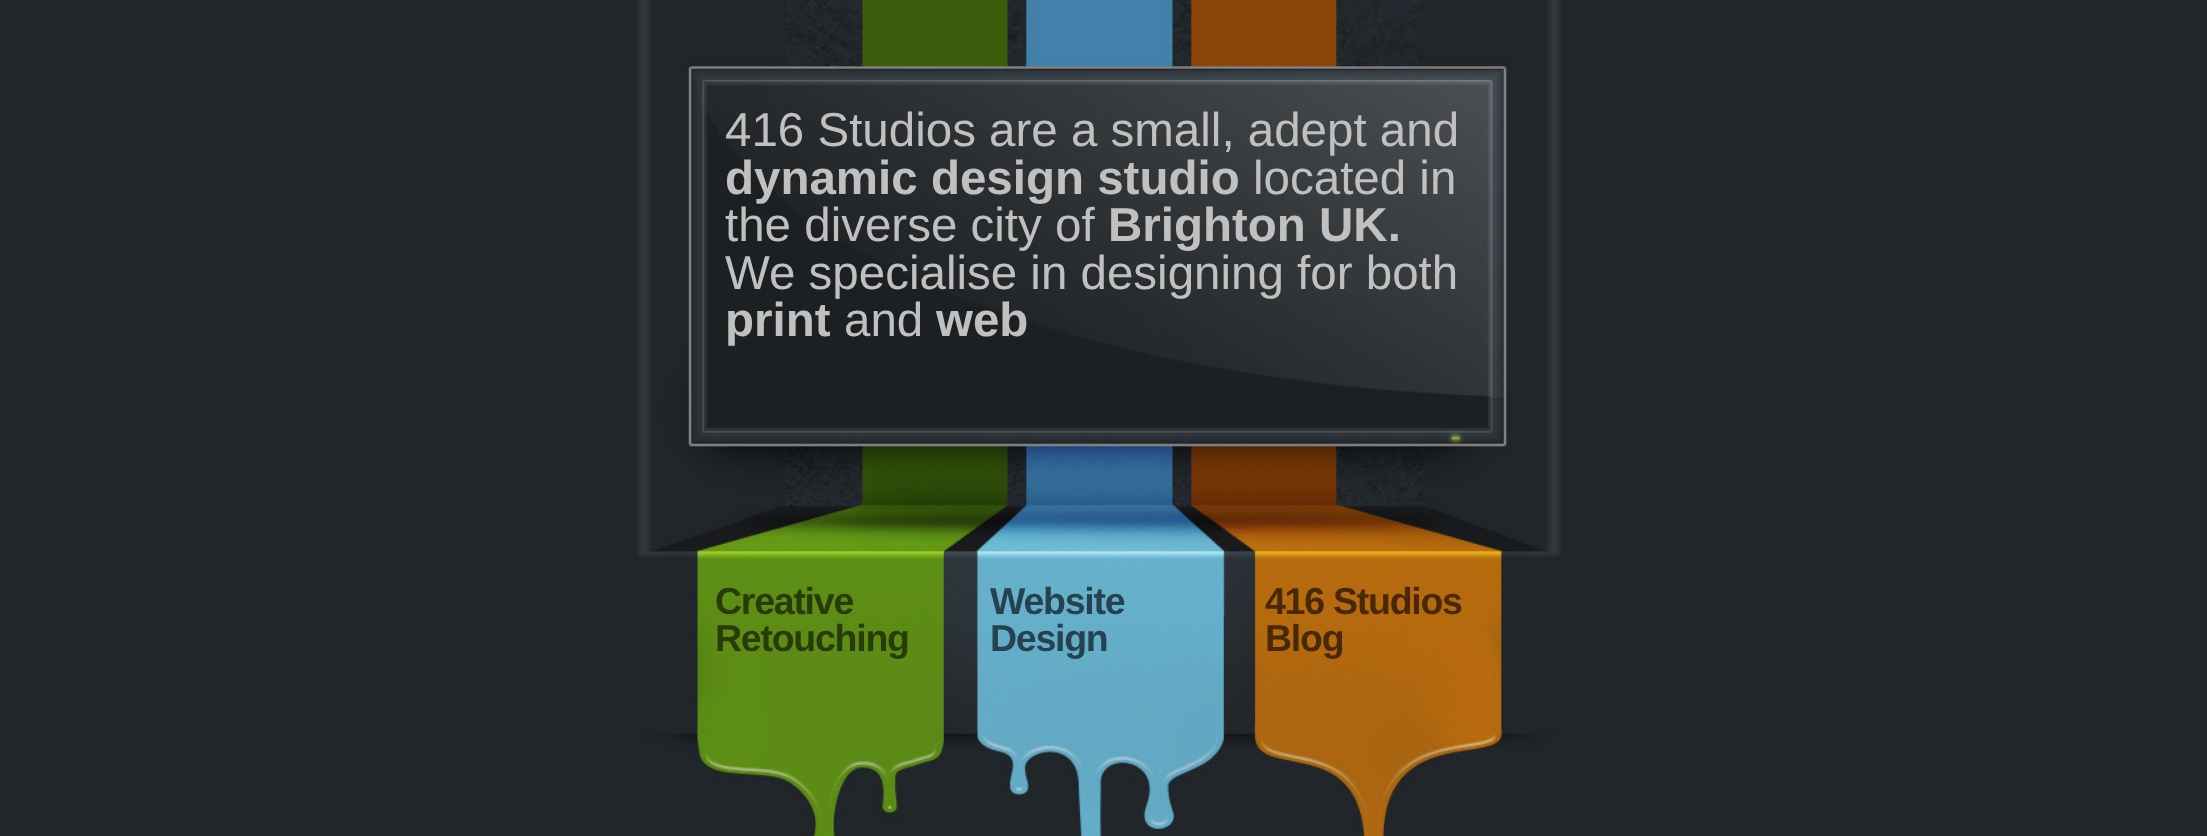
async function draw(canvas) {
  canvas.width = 2207
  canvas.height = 836
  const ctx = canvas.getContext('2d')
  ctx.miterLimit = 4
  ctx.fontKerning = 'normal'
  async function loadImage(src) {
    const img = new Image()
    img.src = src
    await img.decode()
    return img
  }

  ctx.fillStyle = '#21262a'
  ctx.fillRect(0, 0, 2207, 836)
  ctx.drawImage(await loadImage('image0.png'), 637, 0, 924, 836)
  ctx.font = '47.5px Liberation Sans'
  ctx.fillStyle = '#c0c0c0'
  ctx.fillText('416 Studios are a small, adept and', 725, 146)
  ctx.font = 'bold 47.5px Liberation Sans'
  ctx.fillText('dynamic design studio', 725, 194)
  ctx.font = '47.5px Liberation Sans'
  ctx.fillText('located in', 1253, 194)
  ctx.fillText('the diverse city of', 725, 241)
  ctx.font = 'bold 47.5px Liberation Sans'
  ctx.fillText('Brighton UK.', 1108, 241)
  ctx.font = '47.5px Liberation Sans'
  ctx.fillText('We specialise in designing for both', 725, 289)
  ctx.font = 'bold 47.5px Liberation Sans'
  ctx.fillText('print', 725, 336)
  ctx.font = '47.5px Liberation Sans'
  ctx.fillText('and', 844, 336)
  ctx.font = 'bold 47.5px Liberation Sans'
  ctx.fillText('web', 936, 336)
  ctx.letterSpacing = '-1.25px'
  ctx.font = 'bold 37.5px Liberation Sans'
  ctx.fillStyle = '#273c09'
  ctx.fillText('Creative', 715, 614)
  ctx.fillText('Retouching', 715, 651)
  ctx.fillStyle = '#25424e'
  ctx.fillText('Website', 990, 614)
  ctx.fillText('Design', 990, 651)
  ctx.fillStyle = '#482806'
  ctx.fillText('416 Studios', 1265, 614)
  ctx.fillText('Blog', 1265, 651)
}

draw(document.querySelector('canvas'))
